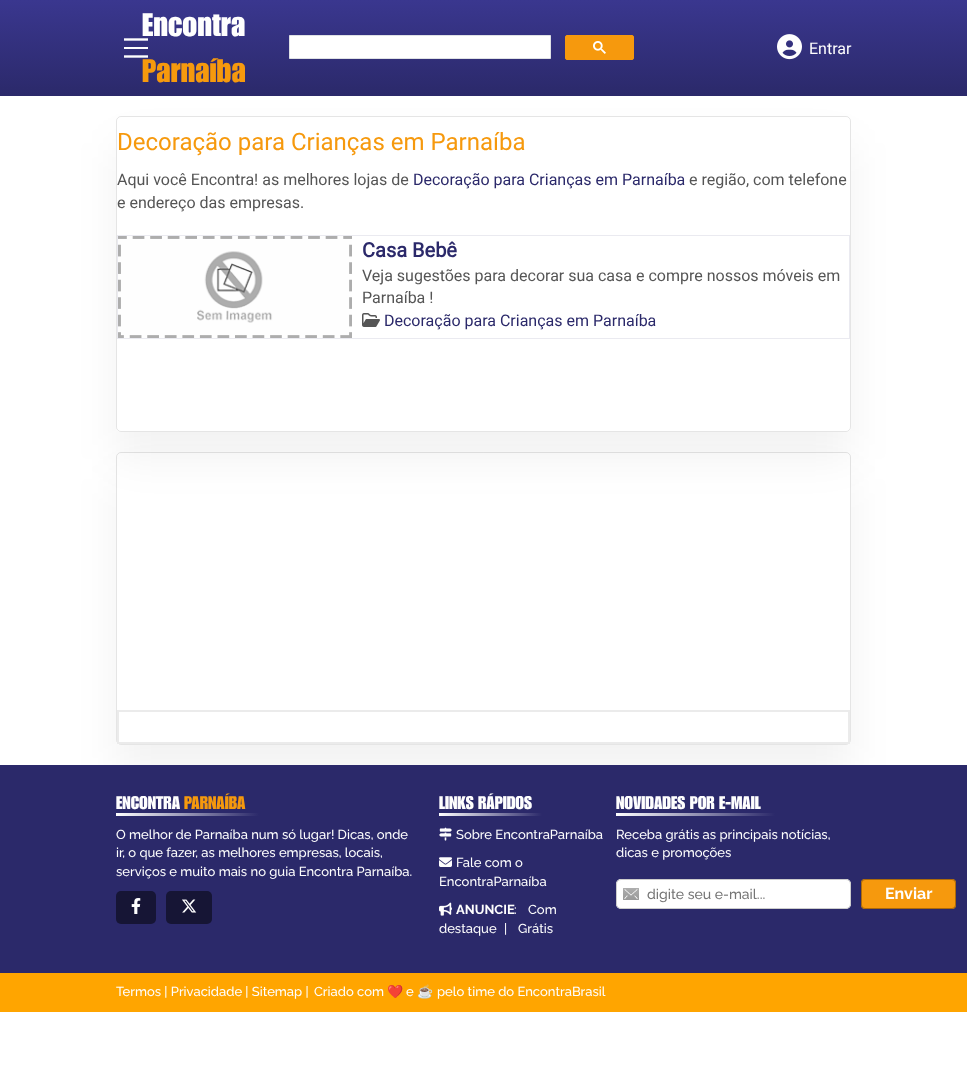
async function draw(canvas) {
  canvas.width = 967
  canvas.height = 1065
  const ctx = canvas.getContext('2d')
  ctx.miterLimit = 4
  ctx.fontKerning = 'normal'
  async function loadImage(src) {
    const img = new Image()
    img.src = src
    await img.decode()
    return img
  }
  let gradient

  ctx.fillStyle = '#fff'
  ctx.fillRect(0, 0, 967, 1065)
  ctx.save()
  ctx.beginPath()
  ctx.moveTo(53, 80)
  ctx.lineTo(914, 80)
  ctx.lineTo(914, 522)
  ctx.lineTo(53, 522)
  ctx.closePath()
  ctx.moveTo(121, 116)
  ctx.lineTo(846, 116)
  ctx.bezierCurveTo(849, 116, 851, 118, 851, 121)
  ctx.lineTo(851, 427)
  ctx.bezierCurveTo(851, 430, 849, 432, 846, 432)
  ctx.lineTo(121, 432)
  ctx.bezierCurveTo(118, 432, 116, 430, 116, 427)
  ctx.lineTo(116, 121)
  ctx.bezierCurveTo(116, 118, 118, 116, 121, 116)
  ctx.closePath()
  ctx.clip('evenodd')
  ctx.fillStyle = '#0000000d'
  ctx.filter = 'blur(20.5px)'
  ctx.beginPath()
  ctx.roundRect(116, 143, 735, 316, 5)
  ctx.fill()
  ctx.filter = 'none'
  ctx.restore()
  gradient = ctx.createLinearGradient(484, 0, 484, 96)
  gradient.addColorStop(0, '#3a378f')
  gradient.addColorStop(1, '#2b296a')
  ctx.fillStyle = gradient
  ctx.fillRect(0, 0, 967, 96)
  ctx.beginPath()
  ctx.moveTo(124, 39.5)
  ctx.lineTo(148, 39.5)
  ctx.strokeStyle = '#fefefe'
  ctx.lineWidth = 2.4
  ctx.stroke()
  ctx.fillStyle = '#fefefe'
  ctx.fillRect(124, 47, 24, 2)
  ctx.beginPath()
  ctx.moveTo(124, 56.5)
  ctx.lineTo(148, 56.5)
  ctx.stroke()
  ctx.font = '500 32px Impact'
  ctx.fillText('Encontra', 142, 36)
  ctx.fillStyle = '#f6990d'
  ctx.fillText('Parnaíba', 142, 82)
  ctx.fillStyle = '#fff'
  ctx.beginPath()
  ctx.rect(289.5, 35.5, 261, 23)
  ctx.fill()
  ctx.strokeStyle = '#dfe1e5'
  ctx.lineWidth = 1
  ctx.stroke()
  ctx.fillStyle = '#f6990d'
  ctx.beginPath()
  ctx.roundRect(565.5, 35.5, 68, 24, 1.5)
  ctx.fill()
  ctx.strokeStyle = '#f6990d'
  ctx.stroke()
  ctx.drawImage(await loadImage('image0.png'), 593, 41, 13, 13)
  ctx.drawImage(await loadImage('image1.png'), 777, 34, 25, 26)
  ctx.font = '16px Roboto'
  ctx.fillStyle = '#fefefe'
  ctx.fillText('Entrar', 809, 54)
  ctx.beginPath()
  ctx.roundRect(116.5, 116.5, 734, 315, 4.5)
  ctx.strokeStyle = '#0000001a'
  ctx.stroke()
  ctx.font = '24px Roboto'
  ctx.fillStyle = '#f6990d'
  ctx.fillText('Decoração para Crianças em Parnaíba', 117, 150)
  ctx.font = '16px Roboto'
  ctx.fillStyle = '#555'
  ctx.fillText('Aqui você Encontra! as melhores lojas de', 117, 185)
  ctx.fillStyle = '#2b296a'
  ctx.fillText('Decoração para Crianças em Parnaíba', 413, 185)
  ctx.fillStyle = '#555'
  ctx.fillText('e região, com telefone', 689, 185)
  ctx.fillText('e endereço das empresas.', 117, 208)
  ctx.strokeStyle = '#eaeaf0'
  ctx.strokeRect(117.5, 235.5, 732, 103)
  ctx.drawImage(await loadImage('image2.png'), 118, 236, 234, 102)
  ctx.font = 'bold 20px Roboto'
  ctx.fillStyle = '#2b296a'
  ctx.fillText('Casa Bebê', 362, 257)
  ctx.font = '16px Roboto'
  ctx.fillStyle = '#555'
  ctx.fillText('Veja sugestões para decorar sua casa e compre nossos móveis em', 362, 281)
  ctx.fillText('Parnaíba !', 362, 303)
  ctx.drawImage(await loadImage('image3.png'), 362, 313, 18, 14)
  ctx.fillStyle = '#2b296a'
  ctx.fillText('Decoração para Crianças em Parnaíba', 384, 326)
  ctx.save()
  ctx.beginPath()
  ctx.moveTo(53, 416)
  ctx.lineTo(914, 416)
  ctx.lineTo(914, 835)
  ctx.lineTo(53, 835)
  ctx.closePath()
  ctx.moveTo(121, 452)
  ctx.lineTo(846, 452)
  ctx.bezierCurveTo(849, 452, 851, 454, 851, 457)
  ctx.lineTo(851, 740)
  ctx.bezierCurveTo(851, 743, 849, 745, 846, 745)
  ctx.lineTo(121, 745)
  ctx.bezierCurveTo(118, 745, 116, 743, 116, 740)
  ctx.lineTo(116, 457)
  ctx.bezierCurveTo(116, 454, 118, 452, 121, 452)
  ctx.closePath()
  ctx.clip('evenodd')
  ctx.fillStyle = '#0000000d'
  ctx.filter = 'blur(20.5px)'
  ctx.beginPath()
  ctx.roundRect(116, 479, 735, 293, 5)
  ctx.fill()
  ctx.filter = 'none'
  ctx.restore()
  ctx.beginPath()
  ctx.roundRect(116.5, 452.5, 734, 292, 4.5)
  ctx.strokeStyle = '#0000001a'
  ctx.stroke()
  ctx.strokeStyle = '#ebebeb'
  ctx.strokeRect(117.5, 710.5, 732, 33)
  ctx.strokeRect(118.5, 711.5, 730, 31)
  ctx.fillRect(0, 765, 967, 208)
  ctx.font = '500 18px Impact'
  ctx.fillStyle = '#fefefe'
  ctx.fillText('ENCONTRA', 116, 809)
  ctx.fillStyle = '#f6990d'
  ctx.fillText('PARNAÍBA', 184, 809)
  gradient = ctx.createLinearGradient(116, 815, 259, 815)
  gradient.addColorStop(0, '#fff')
  gradient.addColorStop(1, '#2b296a')
  ctx.fillStyle = gradient
  ctx.fillRect(116, 813, 143, 3)
  ctx.font = '500 13px Raleway'
  ctx.fillStyle = '#fefefe'
  ctx.fillText('O melhor de Parnaíba num só lugar! Dicas, onde', 116, 839)
  ctx.fillText('ir, o que fazer, as melhores empresas, locais,', 116, 857)
  ctx.fillText('serviços e muito mais no guia Encontra Parnaíba.', 116, 876)
  ctx.fillStyle = '#161535'
  ctx.beginPath()
  ctx.roundRect(116, 891, 40, 33, 5)
  ctx.fill()
  ctx.drawImage(await loadImage('image4.png'), 131, 898, 10, 16)
  ctx.beginPath()
  ctx.roundRect(166, 891, 46, 33, 5)
  ctx.fill()
  ctx.drawImage(await loadImage('image5.png'), 182, 899, 15, 14)
  ctx.font = '500 18px Impact'
  ctx.fillStyle = '#fefefe'
  ctx.fillText('LINKS RÁPIDOS', 439, 809)
  gradient = ctx.createLinearGradient(439, 815, 542, 815)
  gradient.addColorStop(0, '#fff')
  gradient.addColorStop(1, '#2b296a')
  ctx.fillStyle = gradient
  ctx.fillRect(439, 813, 103, 3)
  ctx.drawImage(await loadImage('image6.png'), 439, 827, 13, 14)
  ctx.font = '500 13px Raleway'
  ctx.fillStyle = '#fefefe'
  ctx.fillText('Sobre EncontraParnaíba', 456, 839)
  ctx.drawImage(await loadImage('image7.png'), 439, 857, 13, 10)
  ctx.fillText('Fale com o', 456, 867)
  ctx.fillText('EncontraParnaíba', 439, 886)
  ctx.drawImage(await loadImage('image8.png'), 439, 902, 13, 14)
  ctx.font = 'bold 13px Raleway'
  ctx.fillText('ANUNCIE', 456, 914)
  ctx.font = '500 13px Raleway'
  ctx.fillText(':', 514, 914)
  ctx.fillText('Com', 528, 914)
  ctx.fillText('destaque', 439, 933)
  ctx.fillText('|', 504, 933)
  ctx.fillText('Grátis', 518, 933)
  ctx.font = '500 18px Impact'
  ctx.fillText('NOVIDADES POR E-MAIL', 616, 809)
  gradient = ctx.createLinearGradient(616, 815, 775, 815)
  gradient.addColorStop(0, '#fff')
  gradient.addColorStop(1, '#2b296a')
  ctx.fillStyle = gradient
  ctx.fillRect(616, 813, 159, 3)
  ctx.font = '500 13px Raleway'
  ctx.fillStyle = '#fefefe'
  ctx.fillText('Receba grátis as principais notícias,', 616, 839)
  ctx.fillText('dicas e promoções', 616, 857)
  ctx.fillStyle = '#fff'
  ctx.beginPath()
  ctx.roundRect(616, 879, 235, 30, 5)
  ctx.fill()
  ctx.drawImage(await loadImage('image9.png'), 623, 888, 16, 12)
  ctx.beginPath()
  ctx.roundRect(616.5, 879.5, 234, 29, 4.5)
  ctx.strokeStyle = '#ccc'
  ctx.stroke()
  ctx.font = '500 14px Raleway'
  ctx.fillStyle = '#757575'
  ctx.fillText('digite seu e-mail...', 647, 899)
  ctx.fillStyle = '#f6990d'
  ctx.beginPath()
  ctx.roundRect(861, 879, 95, 30, 4)
  ctx.fill()
  ctx.beginPath()
  ctx.roundRect(861.5, 879.5, 94, 29, 3.5)
  ctx.strokeStyle = '#0000004d'
  ctx.stroke()
  ctx.font = 'bold 16px Raleway'
  ctx.fillStyle = '#fefefe'
  ctx.fillText('Enviar', 885, 899)
  ctx.fillStyle = '#ffa500'
  ctx.fillRect(0, 973, 967, 39)
  ctx.font = '500 13px Raleway'
  ctx.fillStyle = '#fefefe'
  ctx.fillText('Termos | Privacidade | Sitemap |', 116, 996)
  ctx.fillText('Criado com', 314, 996)
  ctx.font = '13px Noto Color Emoji'
  ctx.fillText('❤️', 387, 996)
  ctx.font = '500 13px Raleway'
  ctx.fillText('e', 406, 996)
  ctx.font = '13px Noto Color Emoji'
  ctx.fillText('☕', 417, 996)
  ctx.font = '500 13px Raleway'
  ctx.fillText('pelo time do EncontraBrasil', 437, 996)
}

draw(document.querySelector('canvas'))
